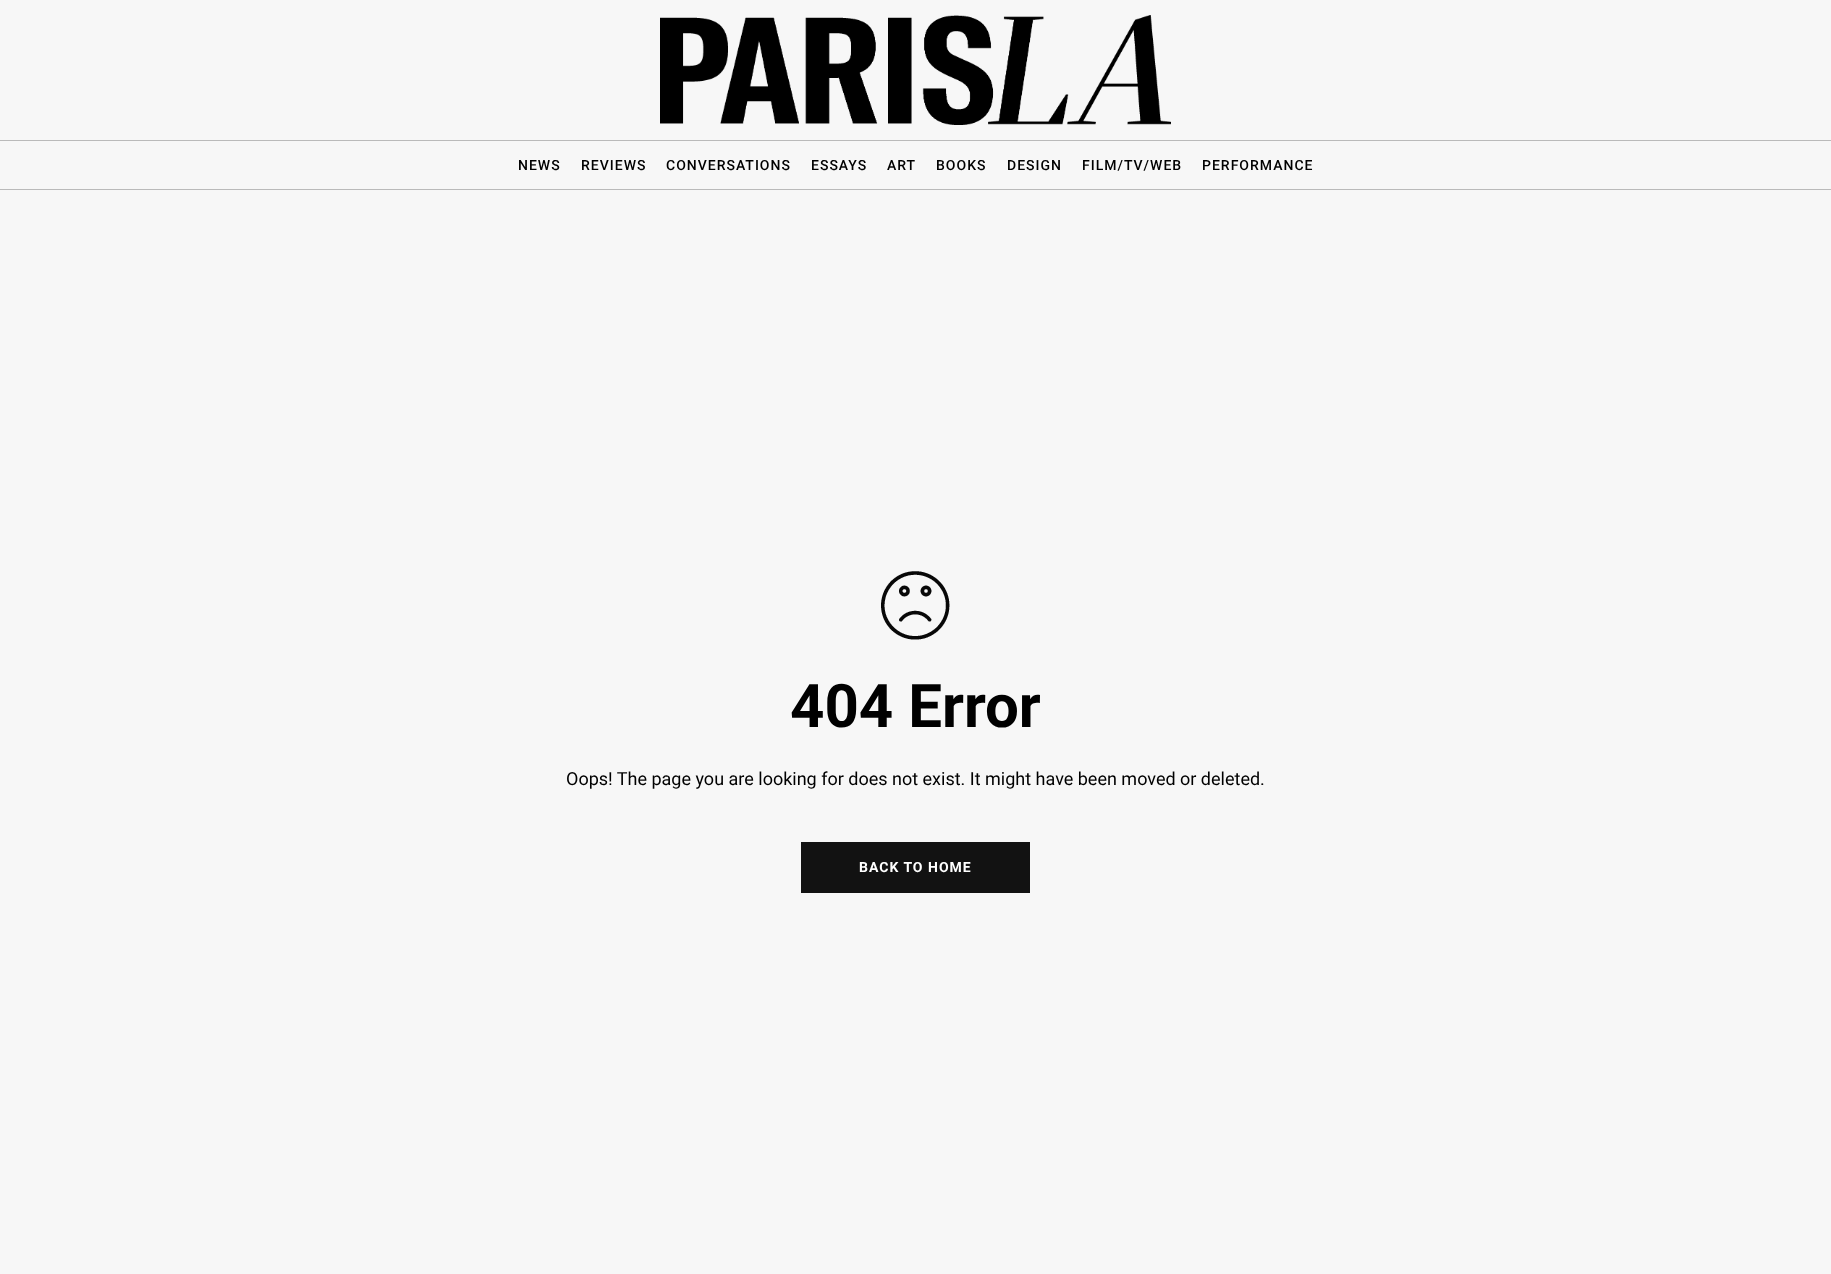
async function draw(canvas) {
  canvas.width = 1831
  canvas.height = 1274
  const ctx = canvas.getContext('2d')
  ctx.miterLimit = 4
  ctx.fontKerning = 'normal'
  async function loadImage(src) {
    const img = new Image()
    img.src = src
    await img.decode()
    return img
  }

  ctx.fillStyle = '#f7f7f7'
  ctx.fillRect(0, 0, 1831, 1274)
  ctx.drawImage(await loadImage('image0.png'), 660, 15, 511, 110)
  ctx.fillStyle = '#bababa'
  ctx.fillRect(0, 140, 1831, 1)
  ctx.fillRect(0, 189, 1831, 1)
  ctx.letterSpacing = '1px'
  ctx.font = '500 14px Roboto'
  ctx.fillStyle = '#000'
  ctx.fillText('NEWS', 518, 170)
  ctx.fillText('REVIEWS', 581, 170)
  ctx.fillText('CONVERSATIONS', 666, 170)
  ctx.fillText('ESSAYS', 811, 170)
  ctx.fillText('ART', 887, 170)
  ctx.fillText('BOOKS', 936, 170)
  ctx.fillText('DESIGN', 1007, 170)
  ctx.fillText('FILM/TV/WEB', 1082, 170)
  ctx.fillText('PERFORMANCE', 1202, 170)
  ctx.drawImage(await loadImage('image1.png'), 881, 571, 69, 69)
  ctx.letterSpacing = '0px'
  ctx.font = 'bold 60px Roboto'
  ctx.fillText('404 Error', 790, 727)
  ctx.font = '18px Roboto'
  ctx.fillText('Oops! The page you are looking for does not exist. It might have been moved or deleted.', 566, 785)
  ctx.fillStyle = '#121212'
  ctx.fillRect(801, 842, 229, 51)
  ctx.letterSpacing = '1px'
  ctx.font = 'bold 14px Roboto'
  ctx.fillStyle = '#fff'
  ctx.fillText('BACK TO HOME', 859, 872)
}

draw(document.querySelector('canvas'))
